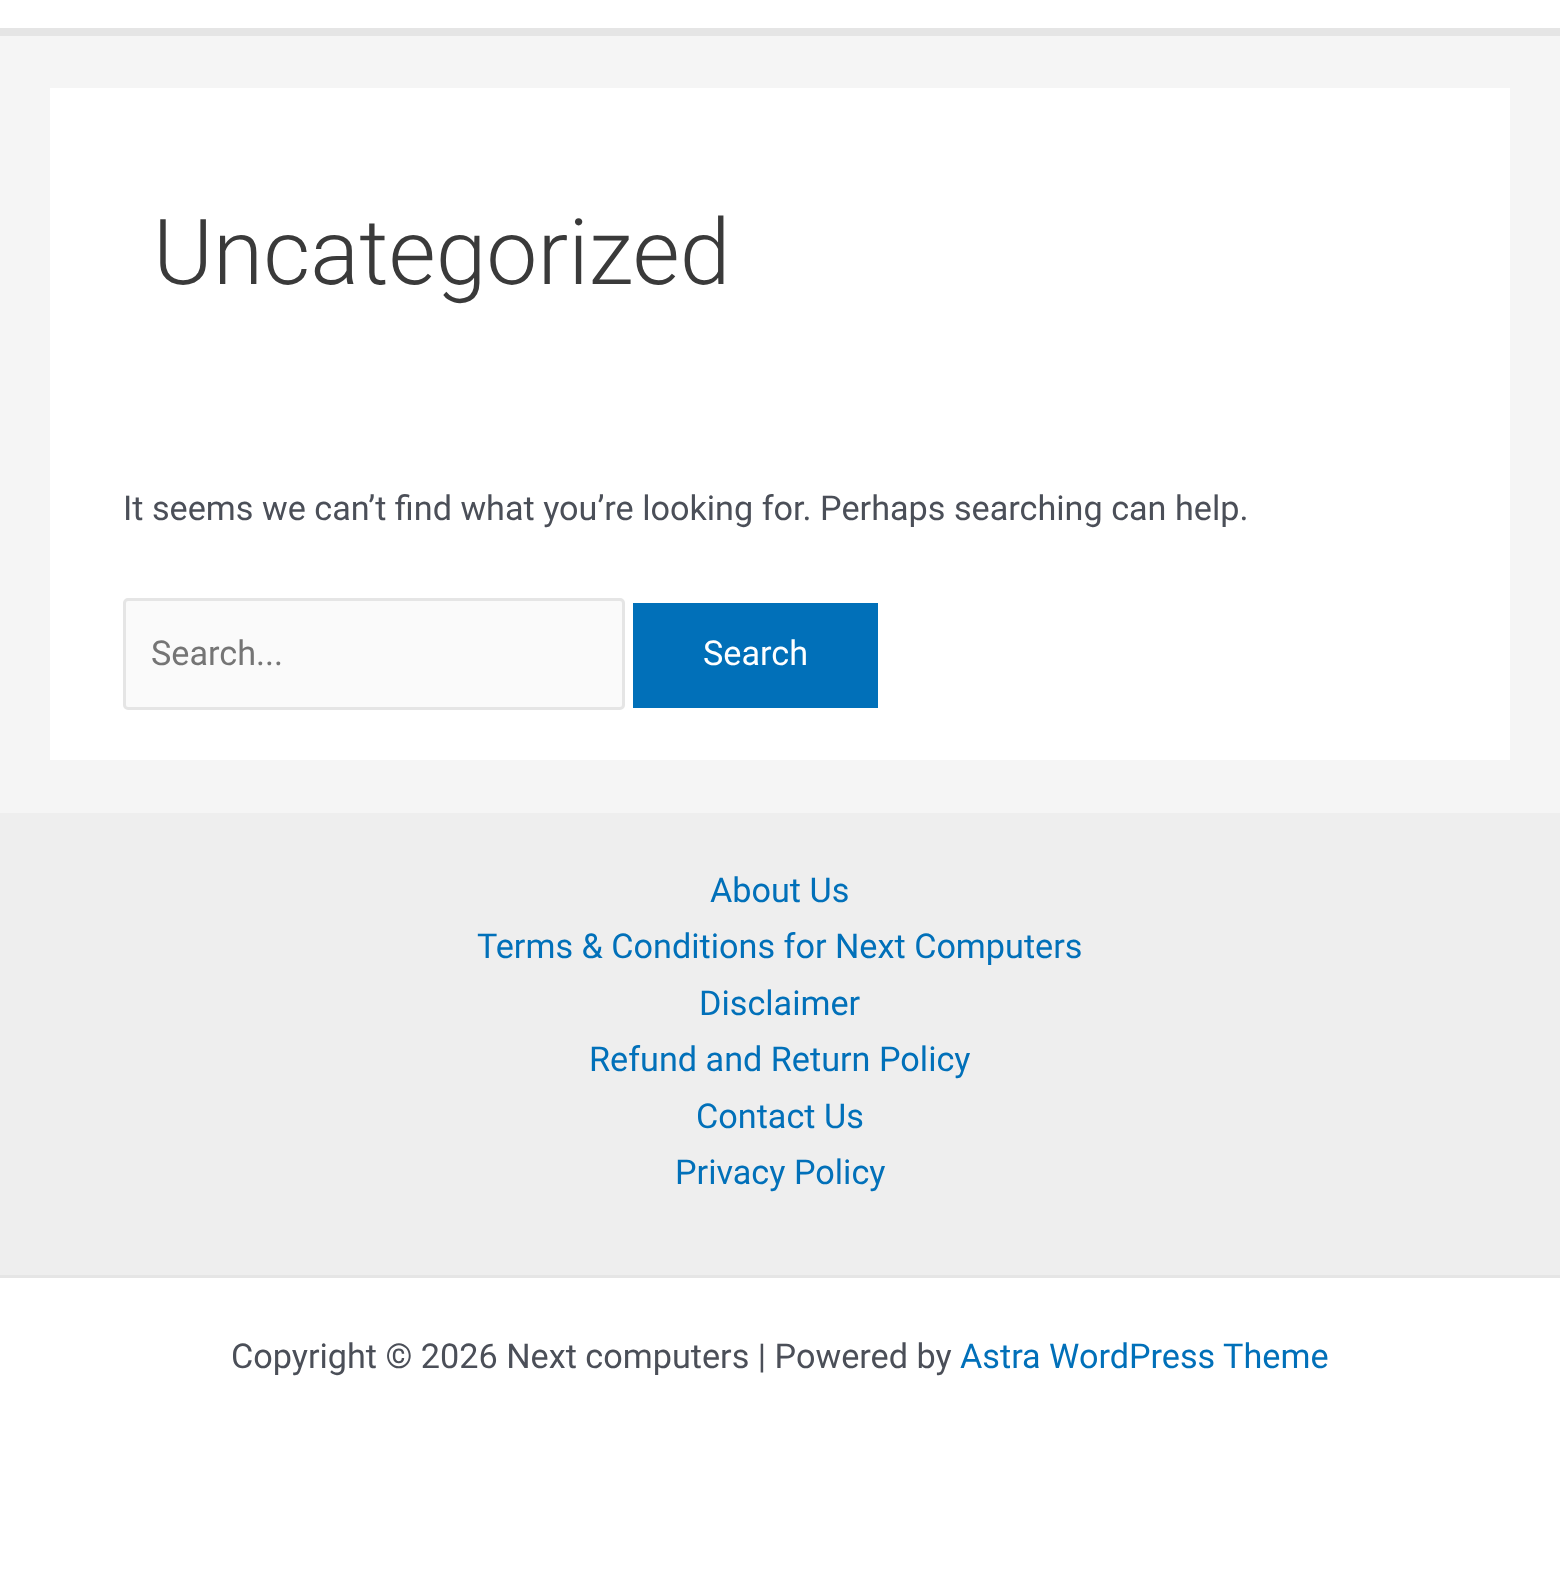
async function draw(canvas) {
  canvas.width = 1560
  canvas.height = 1576
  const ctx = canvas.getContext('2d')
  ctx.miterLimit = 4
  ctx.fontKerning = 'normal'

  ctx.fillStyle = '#f5f5f5'
  ctx.fillRect(0, 0, 1560, 1576)
  ctx.fillStyle = '#fff'
  ctx.fillRect(0, 0, 1560, 28)
  ctx.fillStyle = '#e5e5e5'
  ctx.fillRect(0, 28, 1560, 8)
  ctx.fillStyle = '#fff'
  ctx.fillRect(50, 88, 1460, 672)
  ctx.font = '300 91.25px Roboto'
  ctx.fillStyle = '#3a3a3a'
  ctx.fillText('Uncategorized', 153, 284)
  ctx.font = '34.2px Roboto'
  ctx.fillStyle = '#4b4f58'
  ctx.fillText('It seems we can’t find what you’re looking for. Perhaps searching can help.', 123, 520)
  ctx.fillStyle = '#fafafa'
  ctx.beginPath()
  ctx.roundRect(124.5, 599.5, 499, 109, 3.5)
  ctx.fill()
  ctx.strokeStyle = '#e5e5e5'
  ctx.lineWidth = 3
  ctx.stroke()
  ctx.fillStyle = '#757575'
  ctx.fillText('Search...', 151, 665)
  ctx.fillStyle = '#0170b9'
  ctx.fillRect(633, 603, 245, 105)
  ctx.fillStyle = '#fff'
  ctx.fillText('Search', 703, 665)
  ctx.fillStyle = '#eee'
  ctx.fillRect(0, 813, 1560, 462)
  ctx.fillStyle = '#0170b9'
  ctx.fillText('About Us', 710, 902)
  ctx.fillText('Terms & Conditions for Next Computers', 477, 958)
  ctx.fillText('Disclaimer', 699, 1015)
  ctx.fillText('Refund and Return Policy', 589, 1071)
  ctx.fillText('Contact Us', 696, 1128)
  ctx.fillText('Privacy Policy', 675, 1184)
  ctx.fillStyle = '#fff'
  ctx.fillRect(0, 1278, 1560, 298)
  ctx.fillStyle = '#e5e5e5'
  ctx.fillRect(0, 1275, 1560, 3)
  ctx.fillStyle = '#4b4f58'
  ctx.fillText('Copyright © 2026 Next computers | Powered by', 231, 1368)
  ctx.fillStyle = '#0170b9'
  ctx.fillText('Astra WordPress Theme', 960, 1368)
}

draw(document.querySelector('canvas'))
